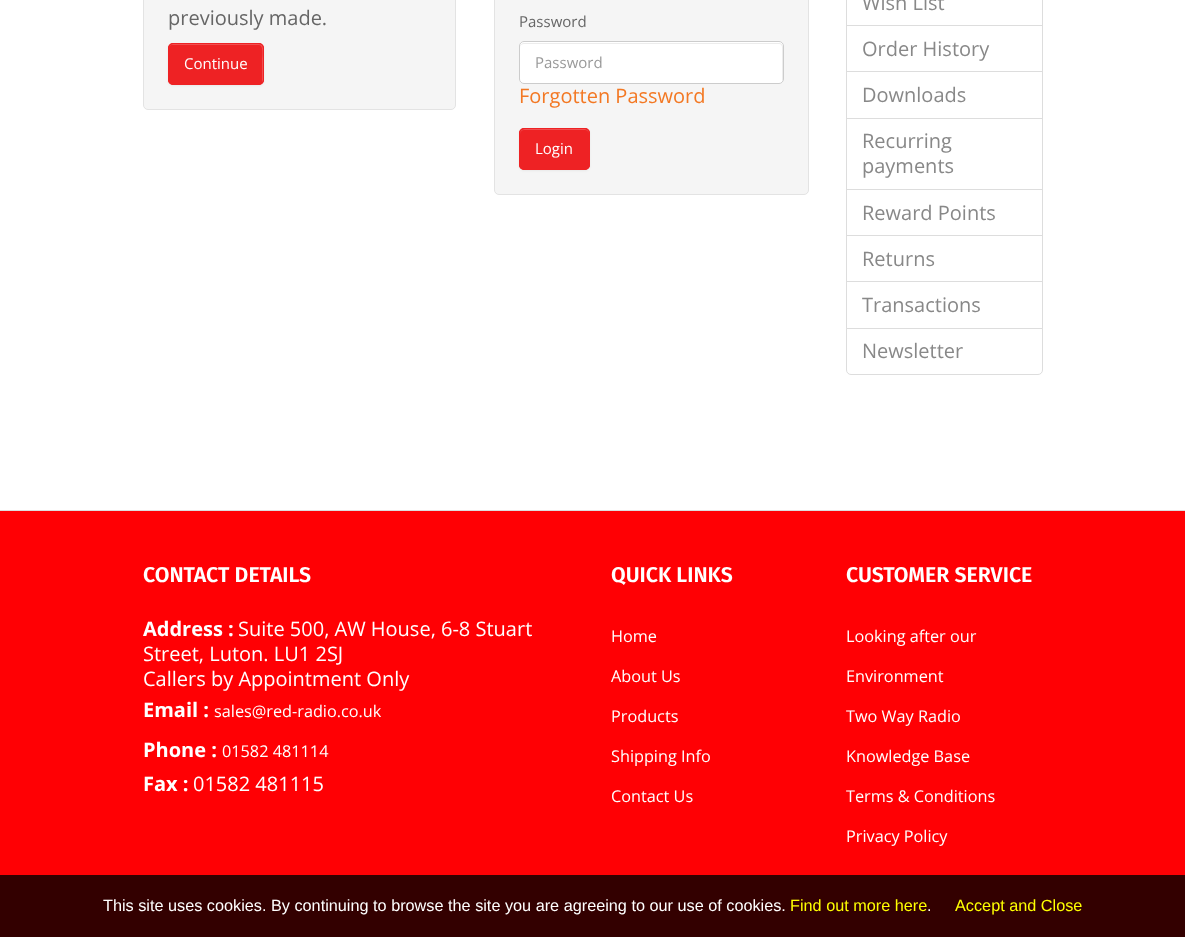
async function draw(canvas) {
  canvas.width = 1185
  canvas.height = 937
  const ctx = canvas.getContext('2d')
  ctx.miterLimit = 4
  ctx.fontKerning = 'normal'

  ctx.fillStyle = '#fff'
  ctx.fillRect(0, 0, 1185, 937)
  ctx.fillStyle = '#f5f5f5'
  ctx.beginPath()
  ctx.roundRect(143.5, -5.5, 312, 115, 4.5)
  ctx.fill()
  ctx.strokeStyle = '#e3e3e3'
  ctx.stroke()
  ctx.font = '20px Open Sans'
  ctx.fillStyle = '#666'
  ctx.fillText('previously made.', 168, 25)
  ctx.fillStyle = '#0000000d'
  ctx.filter = 'blur(1px)'
  ctx.beginPath()
  ctx.roundRect(168, 44, 96, 42, 5)
  ctx.fill()
  ctx.filter = 'none'
  ctx.fillStyle = '#ee2224'
  ctx.beginPath()
  ctx.roundRect(168, 43, 96, 42, 5)
  ctx.fill()
  ctx.fillStyle = '#f14e50'
  ctx.beginPath()
  ctx.moveTo(172, 45)
  ctx.lineTo(259, 45)
  ctx.bezierCurveTo(264, 45, 262, 58, 262, 60)
  ctx.lineTo(262, 83)
  ctx.bezierCurveTo(262, 82, 263, 81, 263, 80)
  ctx.lineTo(263, 48)
  ctx.bezierCurveTo(263, 46, 261, 44, 259, 44)
  ctx.lineTo(173, 44)
  ctx.bezierCurveTo(171, 44, 169, 46, 169, 48)
  ctx.lineTo(169, 49)
  ctx.bezierCurveTo(169, 47, 170, 45, 172, 45)
  ctx.closePath()
  ctx.fill()
  ctx.beginPath()
  ctx.roundRect(168.5, 43.5, 95, 41, 4.5)
  ctx.strokeStyle = '#ee2224'
  ctx.stroke()
  ctx.font = '15px Open Sans'
  ctx.fillStyle = '#fff'
  ctx.fillText('Continue', 184, 69)
  ctx.fillStyle = '#f5f5f5'
  ctx.beginPath()
  ctx.roundRect(494.5, -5.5, 314, 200, 4.5)
  ctx.fill()
  ctx.strokeStyle = '#e3e3e3'
  ctx.stroke()
  ctx.fillStyle = '#666'
  ctx.fillText('Password', 519, 27)
  ctx.fillStyle = '#fff'
  ctx.beginPath()
  ctx.roundRect(519, 41, 265, 43, 5)
  ctx.fill()
  ctx.fillStyle = '#ececec'
  ctx.beginPath()
  ctx.moveTo(524, 44)
  ctx.lineTo(779, 44)
  ctx.bezierCurveTo(781, 44, 782, 45, 782, 48)
  ctx.lineTo(782, 82)
  ctx.bezierCurveTo(782, 81, 783, 80, 783, 79)
  ctx.lineTo(783, 47)
  ctx.bezierCurveTo(783, 45, 781, 43, 779, 43)
  ctx.lineTo(524, 43)
  ctx.bezierCurveTo(522, 43, 520, 45, 520, 47)
  ctx.lineTo(520, 48)
  ctx.bezierCurveTo(520, 45, 522, 44, 524, 44)
  ctx.closePath()
  ctx.fill()
  ctx.beginPath()
  ctx.roundRect(519.5, 41.5, 264, 42, 4.5)
  ctx.strokeStyle = '#ccc'
  ctx.stroke()
  ctx.fillStyle = '#999'
  ctx.fillText('Password', 535, 68)
  ctx.font = '20px Open Sans'
  ctx.fillStyle = '#f37823'
  ctx.fillText('Forgotten Password', 519, 103)
  ctx.fillStyle = '#0000000d'
  ctx.filter = 'blur(1px)'
  ctx.beginPath()
  ctx.roundRect(519, 129, 71, 42, 5)
  ctx.fill()
  ctx.filter = 'none'
  ctx.fillStyle = '#ee2224'
  ctx.beginPath()
  ctx.roundRect(519, 128, 71, 42, 5)
  ctx.fill()
  ctx.fillStyle = '#f14e50'
  ctx.beginPath()
  ctx.moveTo(524, 130)
  ctx.lineTo(585, 130)
  ctx.bezierCurveTo(587, 130, 589, 132, 589, 134)
  ctx.bezierCurveTo(589, 127, 580, 129, 575, 129)
  ctx.lineTo(534, 129)
  ctx.bezierCurveTo(529, 129, 520, 127, 520, 134)
  ctx.bezierCurveTo(520, 132, 522, 130, 524, 130)
  ctx.closePath()
  ctx.fill()
  ctx.beginPath()
  ctx.roundRect(519.5, 128.5, 70, 41, 4.5)
  ctx.strokeStyle = '#ee2224'
  ctx.stroke()
  ctx.font = '15px Open Sans'
  ctx.fillStyle = '#fff'
  ctx.fillText('Login', 535, 154)
  ctx.strokeStyle = '#ddd'
  ctx.strokeRect(846.5, -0.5, 196, 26)
  ctx.font = '20px Open Sans'
  ctx.fillStyle = '#888'
  ctx.fillText('Wish List', 862, 10)
  ctx.strokeRect(846.5, 25.5, 196, 47)
  ctx.fillText('Order History', 862, 56)
  ctx.fillStyle = '#fff'
  ctx.fillRect(847, 72, 195, 1)
  ctx.strokeRect(846.5, 71.5, 196, 47)
  ctx.fillStyle = '#888'
  ctx.fillText('Downloads', 862, 102)
  ctx.strokeRect(846.5, 118.5, 196, 71)
  ctx.fillText('Recurring', 862, 148)
  ctx.fillText('payments', 862, 173)
  ctx.strokeRect(846.5, 189.5, 196, 46)
  ctx.fillText('Reward Points', 862, 220)
  ctx.strokeRect(846.5, 235.5, 196, 47)
  ctx.fillText('Returns', 862, 266)
  ctx.fillStyle = '#fff'
  ctx.fillRect(847, 282, 195, 1)
  ctx.strokeRect(846.5, 281.5, 196, 47)
  ctx.fillStyle = '#888'
  ctx.fillText('Transactions', 862, 312)
  ctx.fillStyle = '#fff'
  ctx.beginPath()
  ctx.roundRect(846.5, 328.5, 196, 46, [0, 0, 4.5, 4.5])
  ctx.fill()
  ctx.stroke()
  ctx.fillStyle = '#888'
  ctx.fillText('Newsletter', 862, 358)
  ctx.fillStyle = '#ff0004'
  ctx.fillRect(0, 511, 1185, 426)
  ctx.fillStyle = '#ddd'
  ctx.fillRect(0, 510, 1185, 1)
  ctx.font = '600 21.25px Fira Sans'
  ctx.fillStyle = '#fff'
  ctx.fillText('CONTACT DETAILS', 143, 582)
  ctx.font = 'bold 20px Open Sans'
  ctx.fillText('Address :', 143, 636)
  ctx.font = '20px Open Sans'
  ctx.fillText('Suite 500, AW House, 6-8 Stuart', 238, 636)
  ctx.fillText('Street, Luton. LU1 2SJ', 143, 661)
  ctx.fillText('Callers by Appointment Only', 143, 686)
  ctx.font = 'bold 20px Open Sans'
  ctx.fillText('Email :', 143, 717)
  ctx.font = '16.25px Open Sans'
  ctx.fillText('sales@red-radio.co.uk', 214, 717)
  ctx.font = 'bold 20px Open Sans'
  ctx.fillText('Phone :', 143, 757)
  ctx.font = '16.25px Open Sans'
  ctx.fillText('01582 481114', 222, 757)
  ctx.font = 'bold 20px Open Sans'
  ctx.fillText('Fax :', 143, 791)
  ctx.font = '20px Open Sans'
  ctx.fillText('01582 481115', 193, 791)
  ctx.font = '600 21.25px Fira Sans'
  ctx.fillText('QUICK LINKS', 611, 582)
  ctx.font = '16.25px Open Sans'
  ctx.fillText('Home', 611, 642)
  ctx.fillText('About Us', 611, 682)
  ctx.fillText('Products', 611, 722)
  ctx.fillText('Shipping Info', 611, 762)
  ctx.fillText('Contact Us', 611, 802)
  ctx.font = '600 21.25px Fira Sans'
  ctx.fillText('CUSTOMER SERVICE', 846, 582)
  ctx.font = '16.25px Open Sans'
  ctx.fillText('Looking after our', 846, 642)
  ctx.fillText('Environment', 846, 682)
  ctx.fillText('Two Way Radio', 846, 722)
  ctx.fillText('Knowledge Base', 846, 762)
  ctx.fillText('Terms & Conditions', 846, 802)
  ctx.fillText('Privacy Policy', 846, 842)
  ctx.fillStyle = '#000000cc'
  ctx.fillRect(0, 875, 1185, 62)
  ctx.font = '16.25px Liberation Sans'
  ctx.fillStyle = '#fff'
  ctx.fillText('This site uses cookies. By continuing to browse the site you are agreeing to our use of cookies.', 103, 911)
  ctx.fillStyle = '#ff0'
  ctx.fillText('Find out more here', 790, 911)
  ctx.fillStyle = '#fff'
  ctx.fillText('.', 927, 911)
  ctx.fillStyle = '#ff0'
  ctx.fillText('Accept and Close', 955, 911)
}

draw(document.querySelector('canvas'))
